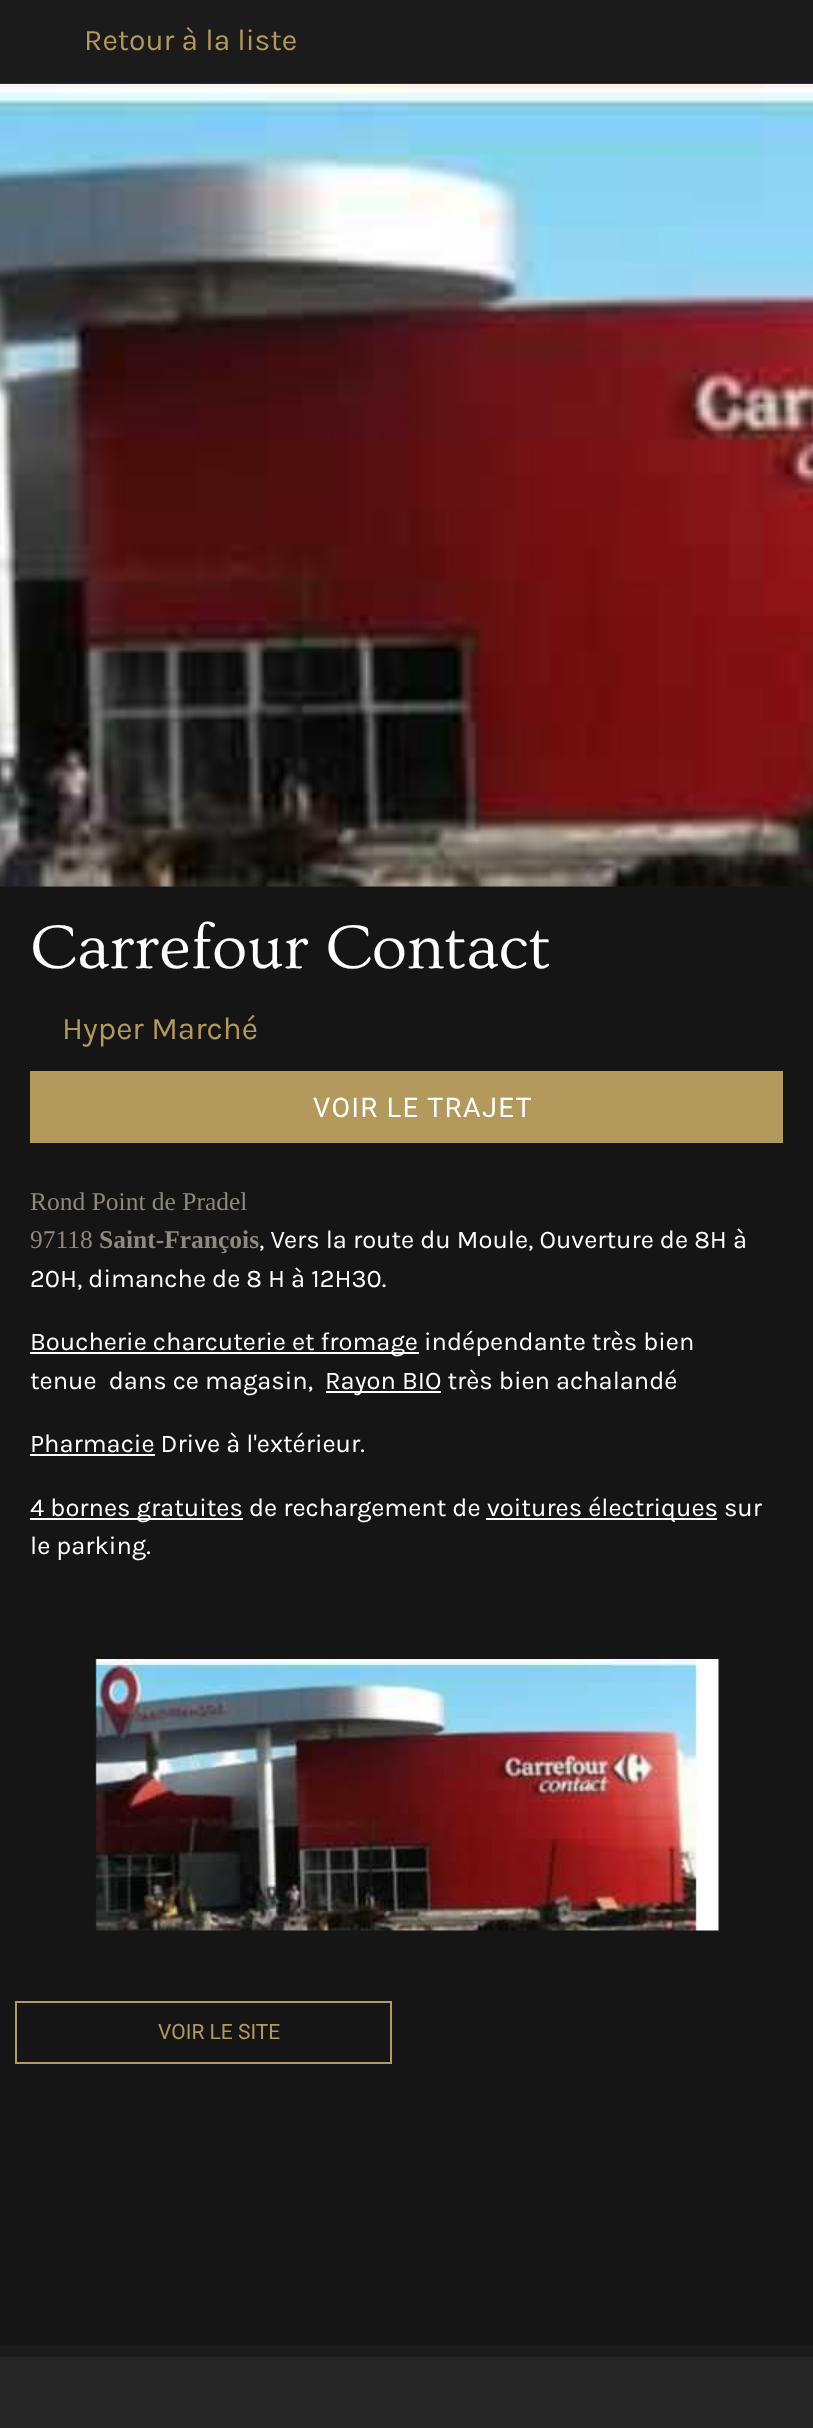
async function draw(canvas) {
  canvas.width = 813
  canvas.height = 2428
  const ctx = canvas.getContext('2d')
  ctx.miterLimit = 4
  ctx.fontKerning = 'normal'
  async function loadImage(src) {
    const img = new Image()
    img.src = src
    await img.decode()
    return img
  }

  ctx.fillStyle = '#1b1b1b'
  ctx.fillRect(0, 0, 813, 2428)
  ctx.fillStyle = '#303030'
  ctx.fillRect(0, 83, 813, 1)
  ctx.font = '30px Karla'
  ctx.fillStyle = '#b3995b'
  ctx.fillText('Retour à la liste', 84, 50)
  ctx.drawImage(await loadImage('image0.png'), 0, 84, 813, 803)
  ctx.fillStyle = '#151515'
  ctx.fillRect(0, 887, 813, 1458)
  ctx.font = '64.5px Ovo'
  ctx.fillStyle = '#fff'
  ctx.fillText('Carrefour Contact', 30, 968)
  ctx.font = '31.5px Karla'
  ctx.fillStyle = '#b3995b'
  ctx.fillText('Hyper Marché', 62, 1039)
  ctx.fillRect(30, 1071, 753, 72)
  ctx.letterSpacing = '1.5px'
  ctx.font = '27px Roboto'
  ctx.fillStyle = '#fff'
  ctx.fillText('VOIR LE TRAJET', 313, 1117)
  ctx.letterSpacing = '0px'
  ctx.font = '25.5px Liberation Serif'
  ctx.fillStyle = '#8e887e'
  ctx.fillText('Rond Point de Pradel', 30, 1210)
  ctx.fillText('97118', 30, 1248)
  ctx.font = 'bold 25.5px Liberation Serif'
  ctx.fillText('Saint-François', 99, 1248)
  ctx.font = '25.5px Karla'
  ctx.fillStyle = '#fff'
  ctx.fillText(', Vers la route du Moule, Ouverture de 8H à', 259, 1248)
  ctx.fillText('20H, dimanche de 8 H à 12H30.', 30, 1287)
  ctx.fillRect(30, 1352, 389, 2)
  ctx.fillText('Boucherie charcuterie et fromage indépendante très bien', 30, 1350)
  ctx.fillText('tenue  dans ce magasin,', 30, 1389)
  ctx.fillRect(326, 1391, 115, 2)
  ctx.fillText('Rayon BIO très bien achalandé', 325, 1389)
  ctx.fillText('Pharmacie Drive à l\'extérieur.', 30, 1452)
  ctx.fillRect(30, 1454, 125, 2)
  ctx.fillRect(30, 1518, 213, 2)
  ctx.fillText('4 bornes gratuites de rechargement de', 30, 1516)
  ctx.fillRect(486, 1518, 231, 2)
  ctx.fillText('voitures électriques sur', 487, 1516)
  ctx.fillText('le parking.', 30, 1554)
  ctx.drawImage(await loadImage('image1.png'), 95, 1659, 624, 272)
  ctx.strokeStyle = '#b3995b'
  ctx.lineWidth = 2
  ctx.strokeRect(16, 2002, 375, 61)
  ctx.font = '21px Roboto'
  ctx.fillStyle = '#b3995b'
  ctx.fillText('VOIR LE SITE', 158, 2039)
  ctx.fillStyle = '#262626'
  ctx.fillRect(0, 2357, 813, 71)
}

draw(document.querySelector('canvas'))
